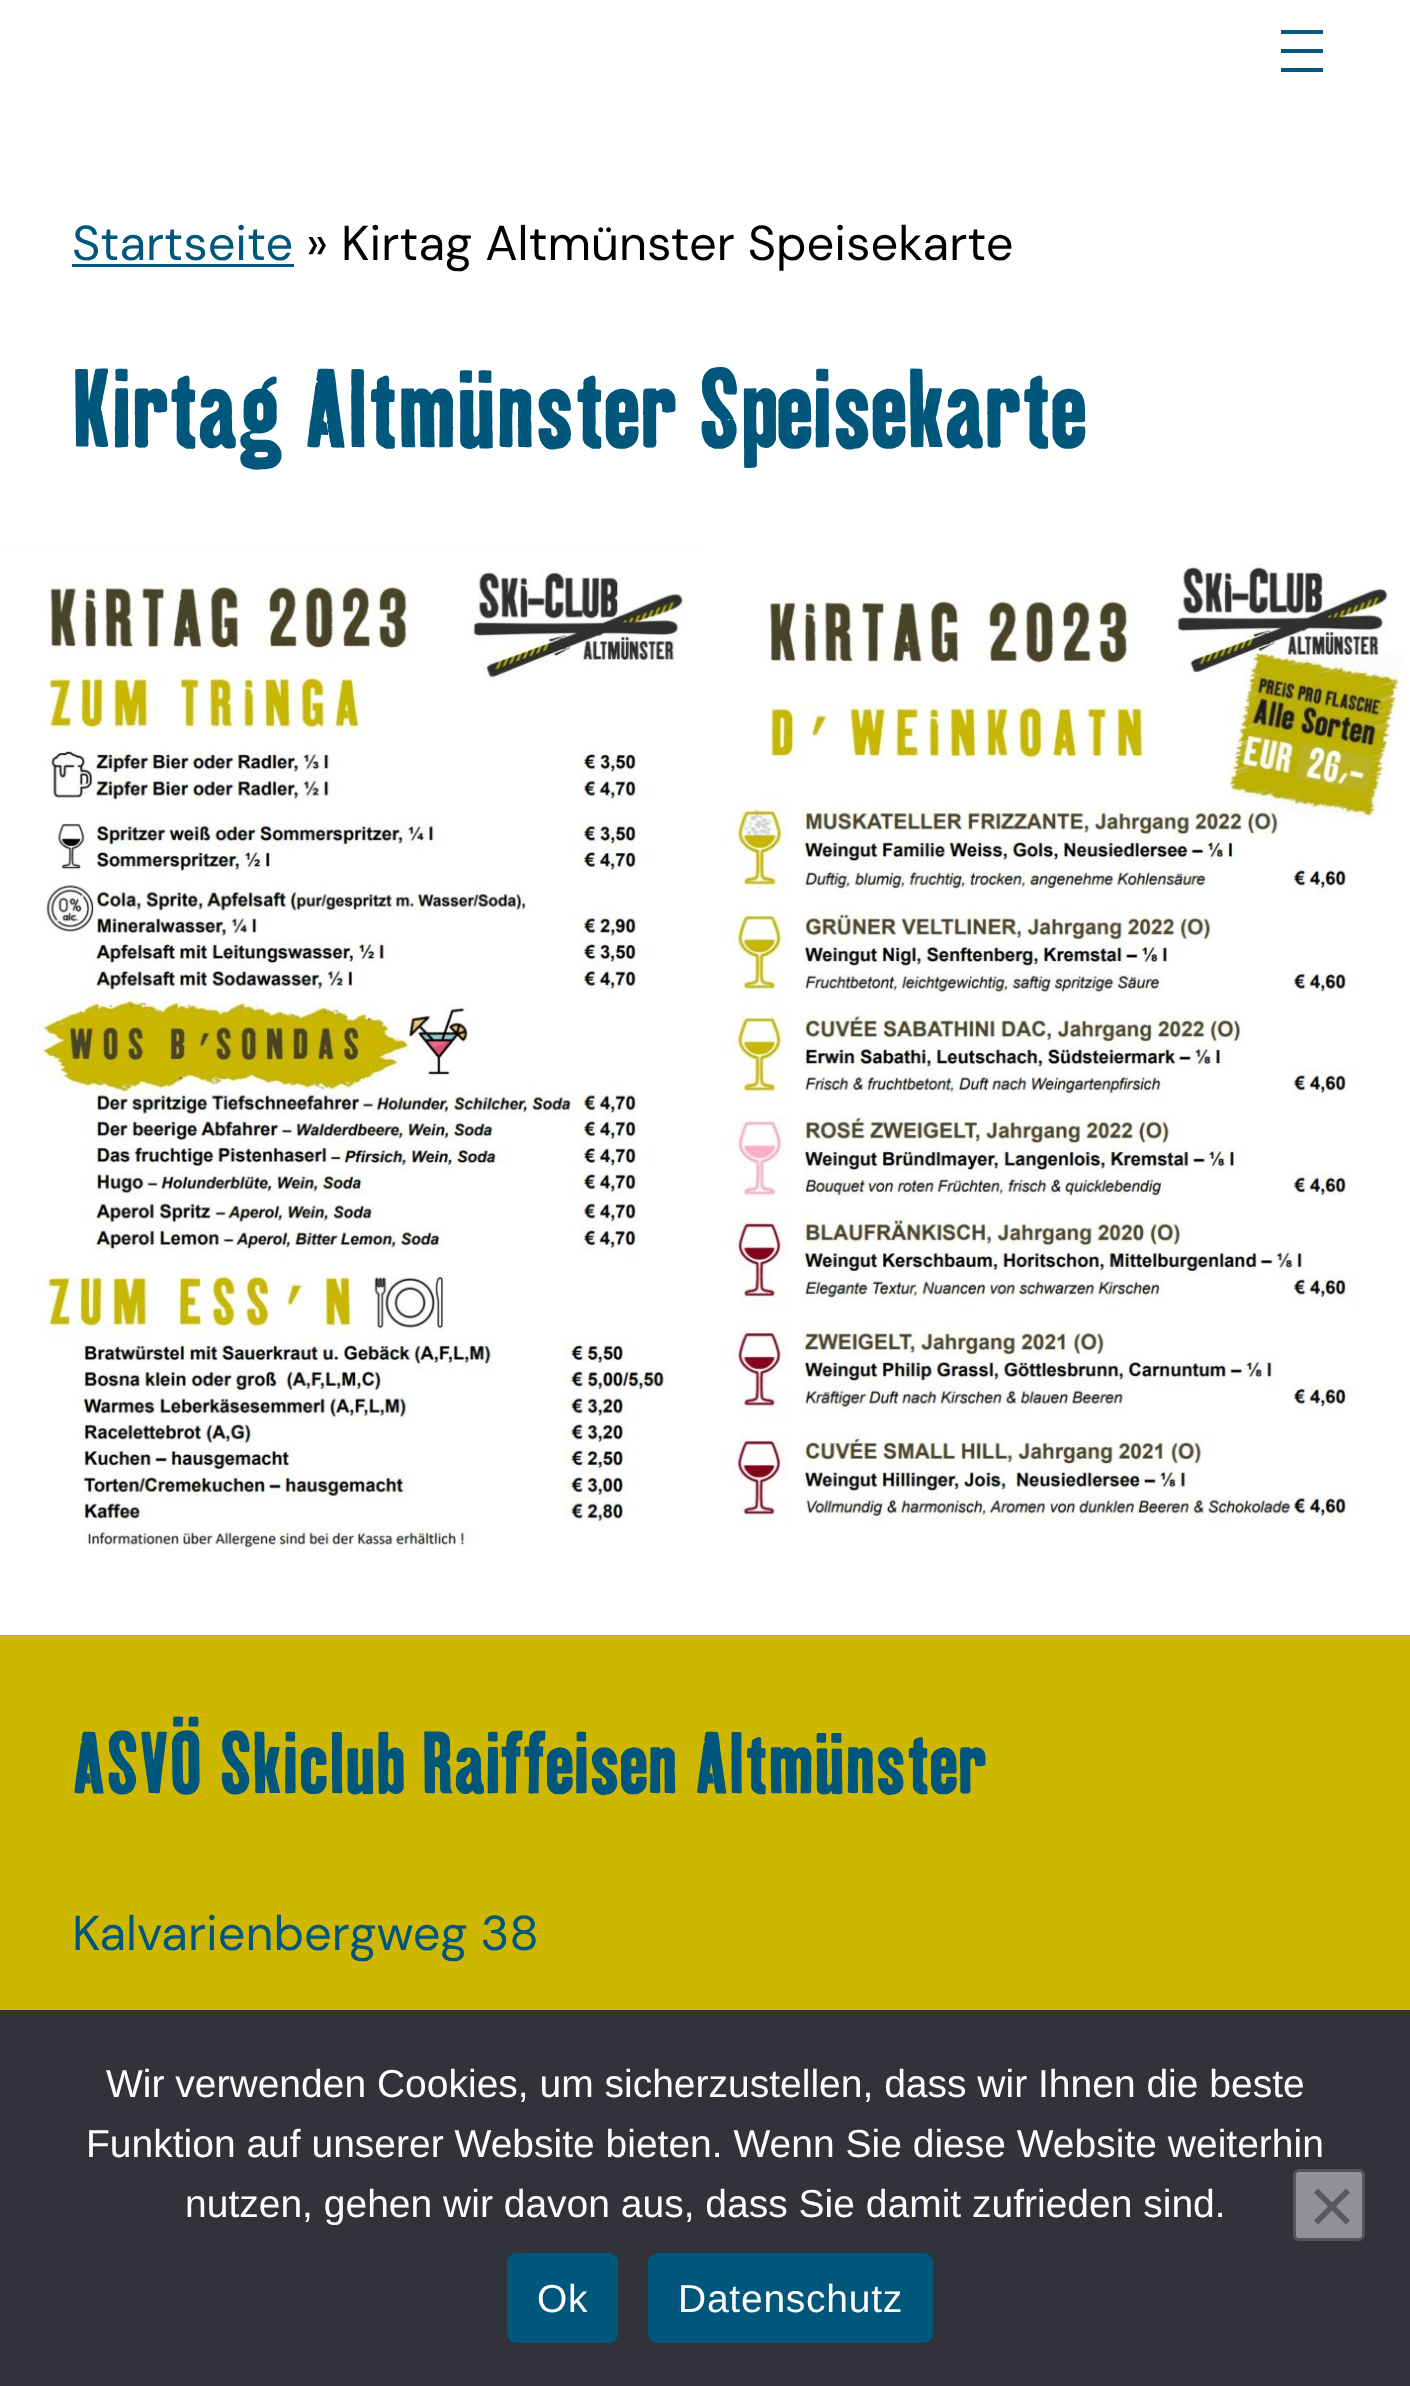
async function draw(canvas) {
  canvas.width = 1410
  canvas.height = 2386
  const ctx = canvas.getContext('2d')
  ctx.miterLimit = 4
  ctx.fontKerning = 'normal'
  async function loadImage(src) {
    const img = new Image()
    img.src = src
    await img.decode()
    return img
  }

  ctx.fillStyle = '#fff'
  ctx.fillRect(0, 0, 1410, 2386)
  ctx.fillStyle = '#01567b'
  ctx.fillRect(1281, 30, 42, 4)
  ctx.fillRect(1281, 49, 42, 4)
  ctx.fillRect(1281, 68, 42, 4)
  ctx.font = '48.8px DM Sans'
  ctx.fillText('Startseite', 72, 260)
  ctx.fillRect(72, 264, 222, 3)
  ctx.fillStyle = '#000'
  ctx.fillText('» Kirtag Altmünster Speisekarte', 306, 260)
  ctx.font = '108.25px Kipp'
  ctx.fillStyle = '#01567b'
  ctx.fillText('Kirtag Altmünster Speisekarte', 72, 447)
  ctx.drawImage(await loadImage('image0.png'), 3, 546, 699, 1006)
  ctx.drawImage(await loadImage('image1.png'), 723, 563, 682, 963)
  ctx.fillStyle = '#cfb700'
  ctx.fillRect(0, 1635, 1410, 375)
  ctx.font = '84.75px Kipp'
  ctx.fillStyle = '#01567b'
  ctx.fillText('ASVÖ Skiclub Raiffeisen Altmünster', 72, 1793)
  ctx.font = '48.8px DM Sans'
  ctx.fillText('Kalvarienbergweg 38', 72, 1950)
  ctx.fillStyle = '#32323a'
  ctx.fillRect(0, 2010, 1410, 376)
  ctx.font = '39px Liberation Sans'
  ctx.fillStyle = '#fff'
  ctx.fillText('Wir verwenden Cookies, um sicherzustellen, dass wir Ihnen die beste', 106, 2097)
  ctx.fillText('Funktion auf unserer Website bieten. Wenn Sie diese Website weiterhin', 86, 2157)
  ctx.fillText('nutzen, gehen wir davon aus, dass Sie damit zufrieden sind.', 185, 2217)
  ctx.fillStyle = '#919195'
  ctx.beginPath()
  ctx.roundRect(1294.5, 2170.5, 69, 69, 4.5)
  ctx.fill()
  ctx.strokeStyle = '#545458'
  ctx.lineWidth = 3
  ctx.stroke()
  ctx.fillStyle = '#59595d'
  ctx.beginPath()
  ctx.moveTo(1346, 2188.5)
  ctx.lineTo(1350, 2192.5)
  ctx.lineTo(1318, 2224.5)
  ctx.lineTo(1314, 2220.5)
  ctx.closePath()
  ctx.fill()
  ctx.beginPath()
  ctx.moveTo(1314, 2192.5)
  ctx.lineTo(1318, 2188.5)
  ctx.lineTo(1350, 2220.5)
  ctx.lineTo(1346, 2224.5)
  ctx.closePath()
  ctx.fill()
  ctx.fillStyle = '#01567b'
  ctx.beginPath()
  ctx.roundRect(507, 2253, 111, 90, 9)
  ctx.fill()
  ctx.letterSpacing = '0.75px'
  ctx.fillStyle = '#fff'
  ctx.fillText('Ok', 537, 2312)
  ctx.fillStyle = '#01567b'
  ctx.beginPath()
  ctx.roundRect(648, 2253, 285, 90, 9)
  ctx.fill()
  ctx.fillStyle = '#fff'
  ctx.fillText('Datenschutz', 678, 2312)
}

draw(document.querySelector('canvas'))
